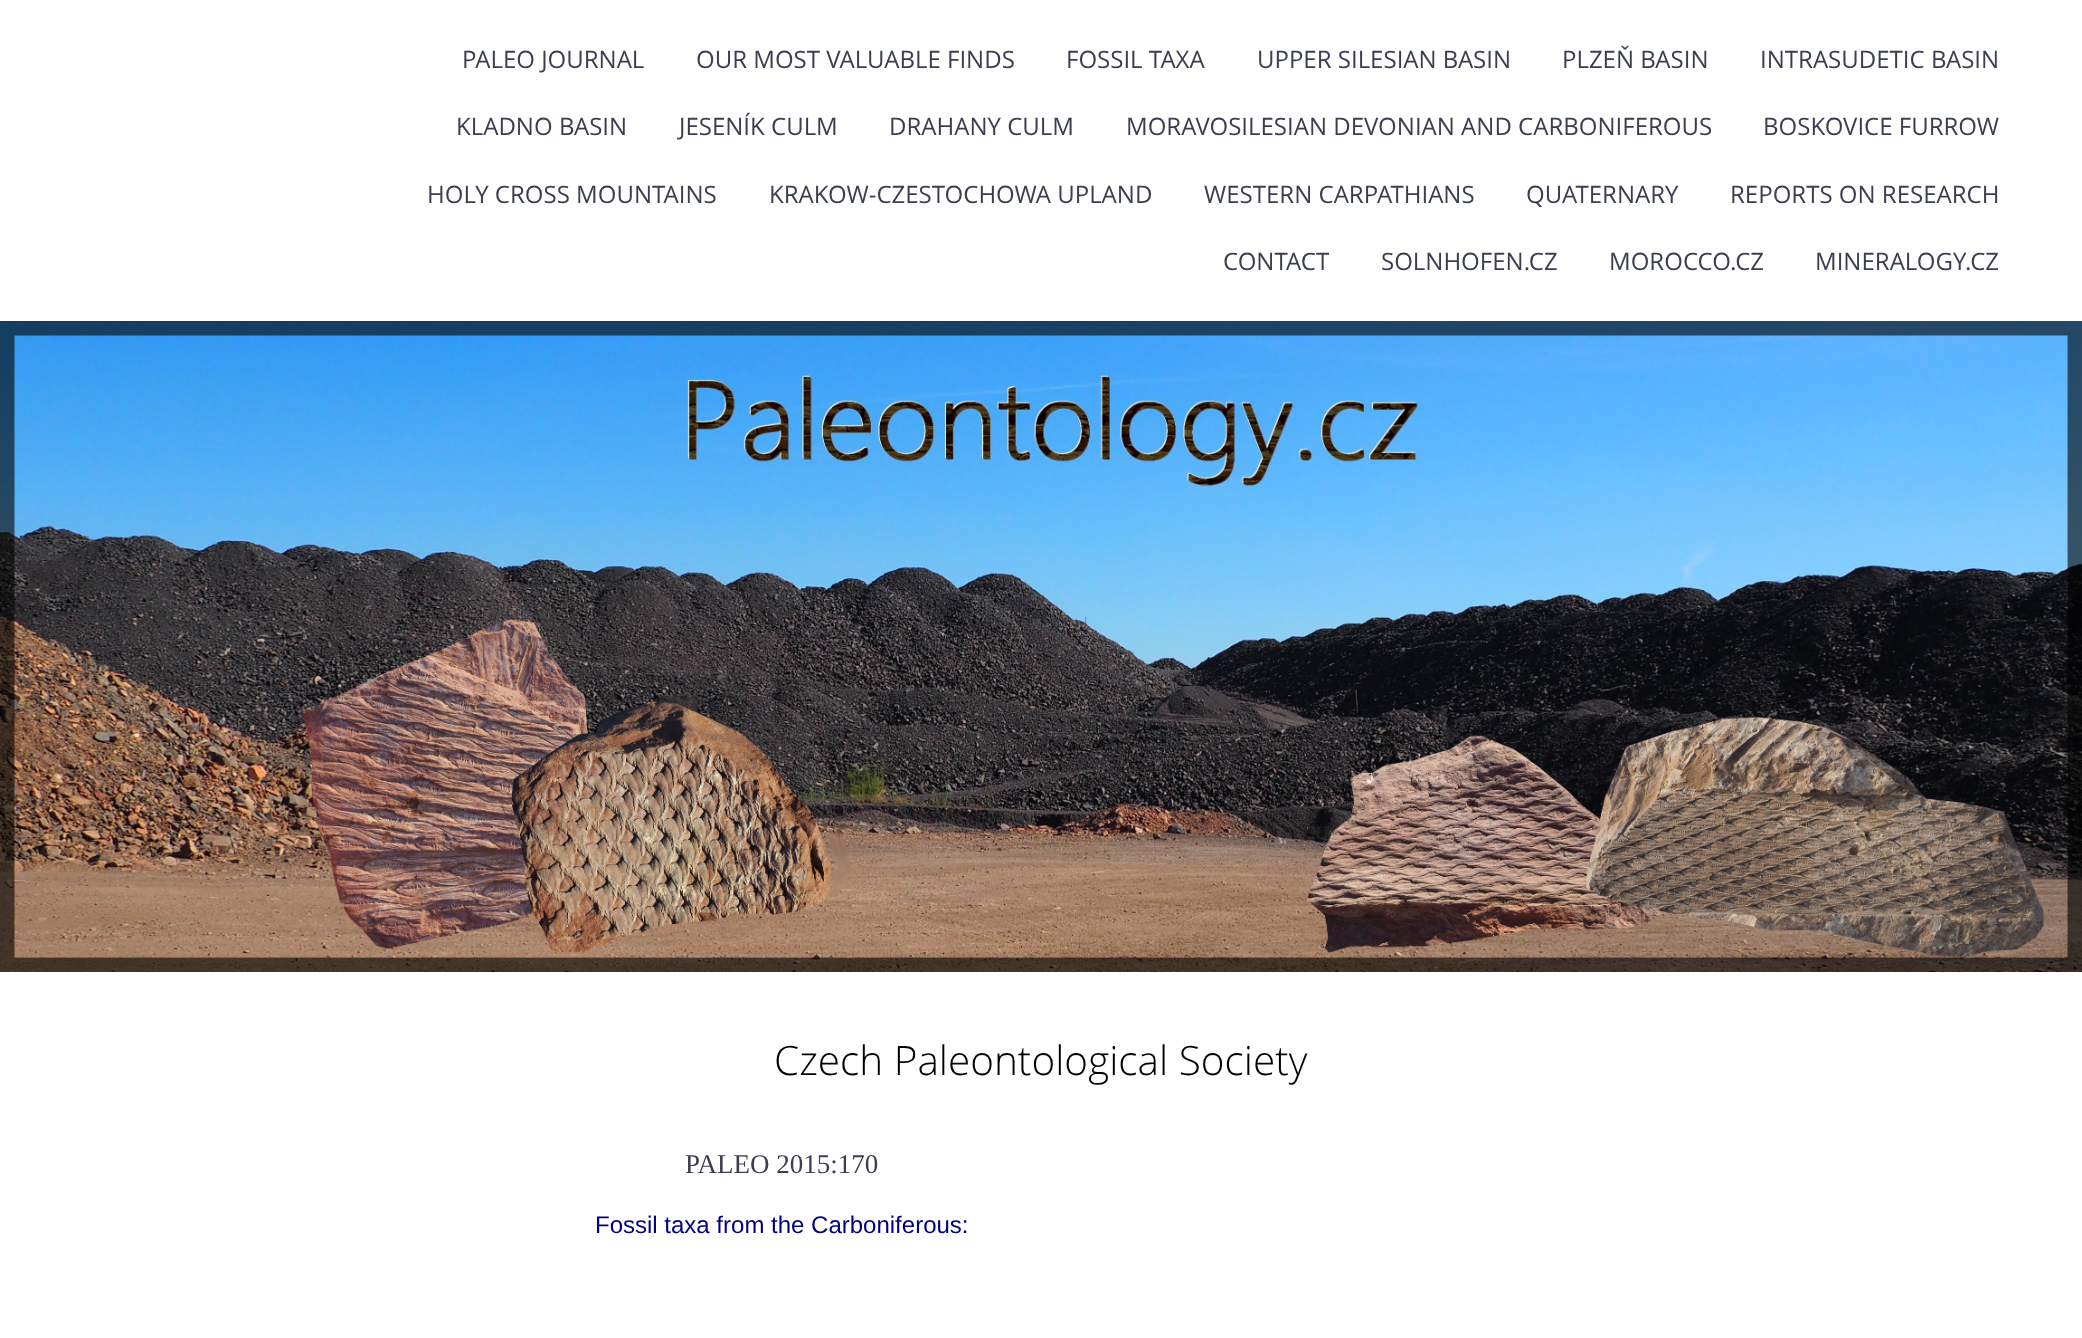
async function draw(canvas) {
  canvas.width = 2082
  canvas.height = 1338
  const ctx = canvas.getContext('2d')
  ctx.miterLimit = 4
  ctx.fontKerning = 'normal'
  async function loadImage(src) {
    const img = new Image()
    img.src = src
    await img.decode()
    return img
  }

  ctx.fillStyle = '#fff'
  ctx.fillRect(0, 0, 2082, 1338)
  ctx.font = '24px Open Sans'
  ctx.fillStyle = '#3b3e4f'
  ctx.fillText('PALEO JOURNAL', 462, 68)
  ctx.fillText('OUR MOST VALUABLE FINDS', 696, 68)
  ctx.fillText('FOSSIL TAXA', 1066, 68)
  ctx.fillText('UPPER SILESIAN BASIN', 1257, 68)
  ctx.fillText('PLZEŇ BASIN', 1562, 68)
  ctx.fillText('INTRASUDETIC BASIN', 1760, 68)
  ctx.fillText('KLADNO BASIN', 456, 135)
  ctx.fillText('JESENÍK CULM', 679, 135)
  ctx.fillText('DRAHANY CULM', 889, 135)
  ctx.fillText('MORAVOSILESIAN DEVONIAN AND CARBONIFEROUS', 1126, 135)
  ctx.fillText('BOSKOVICE FURROW', 1763, 135)
  ctx.fillText('HOLY CROSS MOUNTAINS', 427, 203)
  ctx.fillText('KRAKOW-CZESTOCHOWA UPLAND', 769, 203)
  ctx.fillText('WESTERN CARPATHIANS', 1204, 203)
  ctx.fillText('QUATERNARY', 1526, 203)
  ctx.fillText('REPORTS ON RESEARCH', 1730, 203)
  ctx.fillText('CONTACT', 1223, 270)
  ctx.fillText('SOLNHOFEN.CZ', 1381, 270)
  ctx.fillText('MOROCCO.CZ', 1609, 270)
  ctx.fillText('MINERALOGY.CZ', 1815, 270)
  ctx.drawImage(await loadImage('image0.png'), 0, 321, 2082, 651)
  ctx.font = '300 40.5px Open Sans'
  ctx.fillStyle = '#000'
  ctx.fillText('Czech Paleontological Society', 774, 1075)
  ctx.font = '27px Liberation Serif'
  ctx.fillStyle = '#3b3e4f'
  ctx.fillText('PALEO 2015:170', 685, 1173)
  ctx.font = '24px Liberation Sans'
  ctx.fillStyle = '#000080'
  ctx.fillText('Fossil taxa from the Carboniferous:', 595, 1233)
}

draw(document.querySelector('canvas'))
